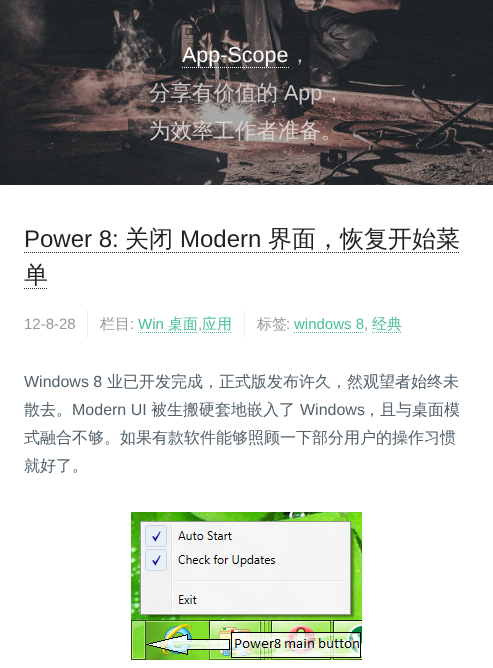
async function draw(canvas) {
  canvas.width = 493
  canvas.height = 668
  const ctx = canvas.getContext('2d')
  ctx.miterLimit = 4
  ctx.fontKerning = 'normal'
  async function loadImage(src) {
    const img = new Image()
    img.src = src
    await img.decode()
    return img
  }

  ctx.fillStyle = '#fff'
  ctx.fillRect(0, 0, 493, 668)
  ctx.drawImage(await loadImage('image0.png'), 0, 0, 493, 185)
  ctx.font = '21.5px Liberation Sans'
  ctx.fillText('App-Scope', 182, 62)
  ctx.beginPath()
  ctx.moveTo(182, 67.5)
  ctx.lineTo(289, 67.5)
  ctx.strokeStyle = '#fff'
  ctx.setLineDash([1, 1])
  ctx.stroke()
  ctx.font = '500 21.5px WenQuanYi Zen Hei'
  ctx.fillStyle = '#bcbebf'
  ctx.fillText('，', 289, 62)
  ctx.fillStyle = '#cdcaca'
  ctx.fillText('分享有价值的', 149, 100)
  ctx.font = '21.5px Liberation Sans'
  ctx.fillText('App', 284, 100)
  ctx.font = '500 21.5px WenQuanYi Zen Hei'
  ctx.fillStyle = '#ded3d1'
  ctx.fillText('，', 323, 100)
  ctx.fillStyle = '#d7d2d1'
  ctx.fillText('为效率工作者准备。', 149, 138)
  ctx.font = '24px Liberation Sans'
  ctx.fillStyle = '#1e2022'
  ctx.fillText('Power 8:', 24, 247)
  ctx.beginPath()
  ctx.moveTo(24, 252.5)
  ctx.lineTo(460, 252.5)
  ctx.strokeStyle = '#1e2022'
  ctx.stroke()
  ctx.font = '500 24px WenQuanYi Zen Hei'
  ctx.fillText('关闭', 125, 247)
  ctx.font = '24px Liberation Sans'
  ctx.fillText('Modern', 180, 247)
  ctx.font = '500 24px WenQuanYi Zen Hei'
  ctx.fillText('界面，恢复开始菜', 268, 247)
  ctx.fillText('单', 24, 283)
  ctx.beginPath()
  ctx.moveTo(24, 288.5)
  ctx.lineTo(48, 288.5)
  ctx.stroke()
  ctx.font = '15px Liberation Sans'
  ctx.fillStyle = '#999'
  ctx.fillText('12-8-28', 24, 329)
  ctx.fillStyle = '#eee'
  ctx.fillRect(87, 310, 1, 28)
  ctx.font = '500 15px WenQuanYi Zen Hei'
  ctx.fillStyle = '#999'
  ctx.fillText('栏目', 100, 329)
  ctx.font = '15px Liberation Sans'
  ctx.fillText(':', 130, 329)
  ctx.fillStyle = '#49bf9d'
  ctx.fillText('Win', 138, 329)
  ctx.font = '500 15px WenQuanYi Zen Hei'
  ctx.fillText('桌面', 168, 329)
  ctx.beginPath()
  ctx.moveTo(138, 332.5)
  ctx.lineTo(198, 332.5)
  ctx.strokeStyle = '#49bf9d'
  ctx.stroke()
  ctx.font = '15px Liberation Sans'
  ctx.fillStyle = '#999'
  ctx.fillText(',', 198, 329)
  ctx.font = '500 15px WenQuanYi Zen Hei'
  ctx.fillStyle = '#49bf9d'
  ctx.fillText('应用', 202, 329)
  ctx.beginPath()
  ctx.moveTo(202, 332.5)
  ctx.lineTo(231, 332.5)
  ctx.stroke()
  ctx.fillStyle = '#eee'
  ctx.fillRect(244, 310, 1, 28)
  ctx.fillStyle = '#999'
  ctx.fillText('标签', 257, 329)
  ctx.font = '15px Liberation Sans'
  ctx.fillText(':', 286, 329)
  ctx.fillStyle = '#49bf9d'
  ctx.fillText('windows 8', 294, 329)
  ctx.beginPath()
  ctx.moveTo(294, 332.5)
  ctx.lineTo(364, 332.5)
  ctx.stroke()
  ctx.fillStyle = '#999'
  ctx.fillText(',', 364, 329)
  ctx.font = '500 15px WenQuanYi Zen Hei'
  ctx.fillStyle = '#49bf9d'
  ctx.fillText('经典', 372, 329)
  ctx.beginPath()
  ctx.moveTo(372, 332.5)
  ctx.lineTo(402, 332.5)
  ctx.stroke()
  ctx.font = '16px Liberation Sans'
  ctx.fillStyle = '#52616a'
  ctx.fillText('Windows 8', 24, 387)
  ctx.font = '500 16px WenQuanYi Zen Hei'
  ctx.fillText('业已开发完成，正式版发布许久，然观望者始终未', 107, 387)
  ctx.fillText('散去。', 24, 415)
  ctx.font = '16px Liberation Sans'
  ctx.fillText('Modern UI', 72, 415)
  ctx.font = '500 16px WenQuanYi Zen Hei'
  ctx.fillText('被生搬硬套地嵌入了', 151, 415)
  ctx.font = '16px Liberation Sans'
  ctx.fillText('Windows', 300, 415)
  ctx.font = '500 16px WenQuanYi Zen Hei'
  ctx.fillText('，且与桌面模', 364, 415)
  ctx.fillText('式融合不够。如果有款软件能够照顾一下部分用户的操作习惯', 24, 443)
  ctx.fillText('就好了。', 24, 471)
  ctx.drawImage(await loadImage('image1.png'), 131, 512, 231, 148)
}

draw(document.querySelector('canvas'))
